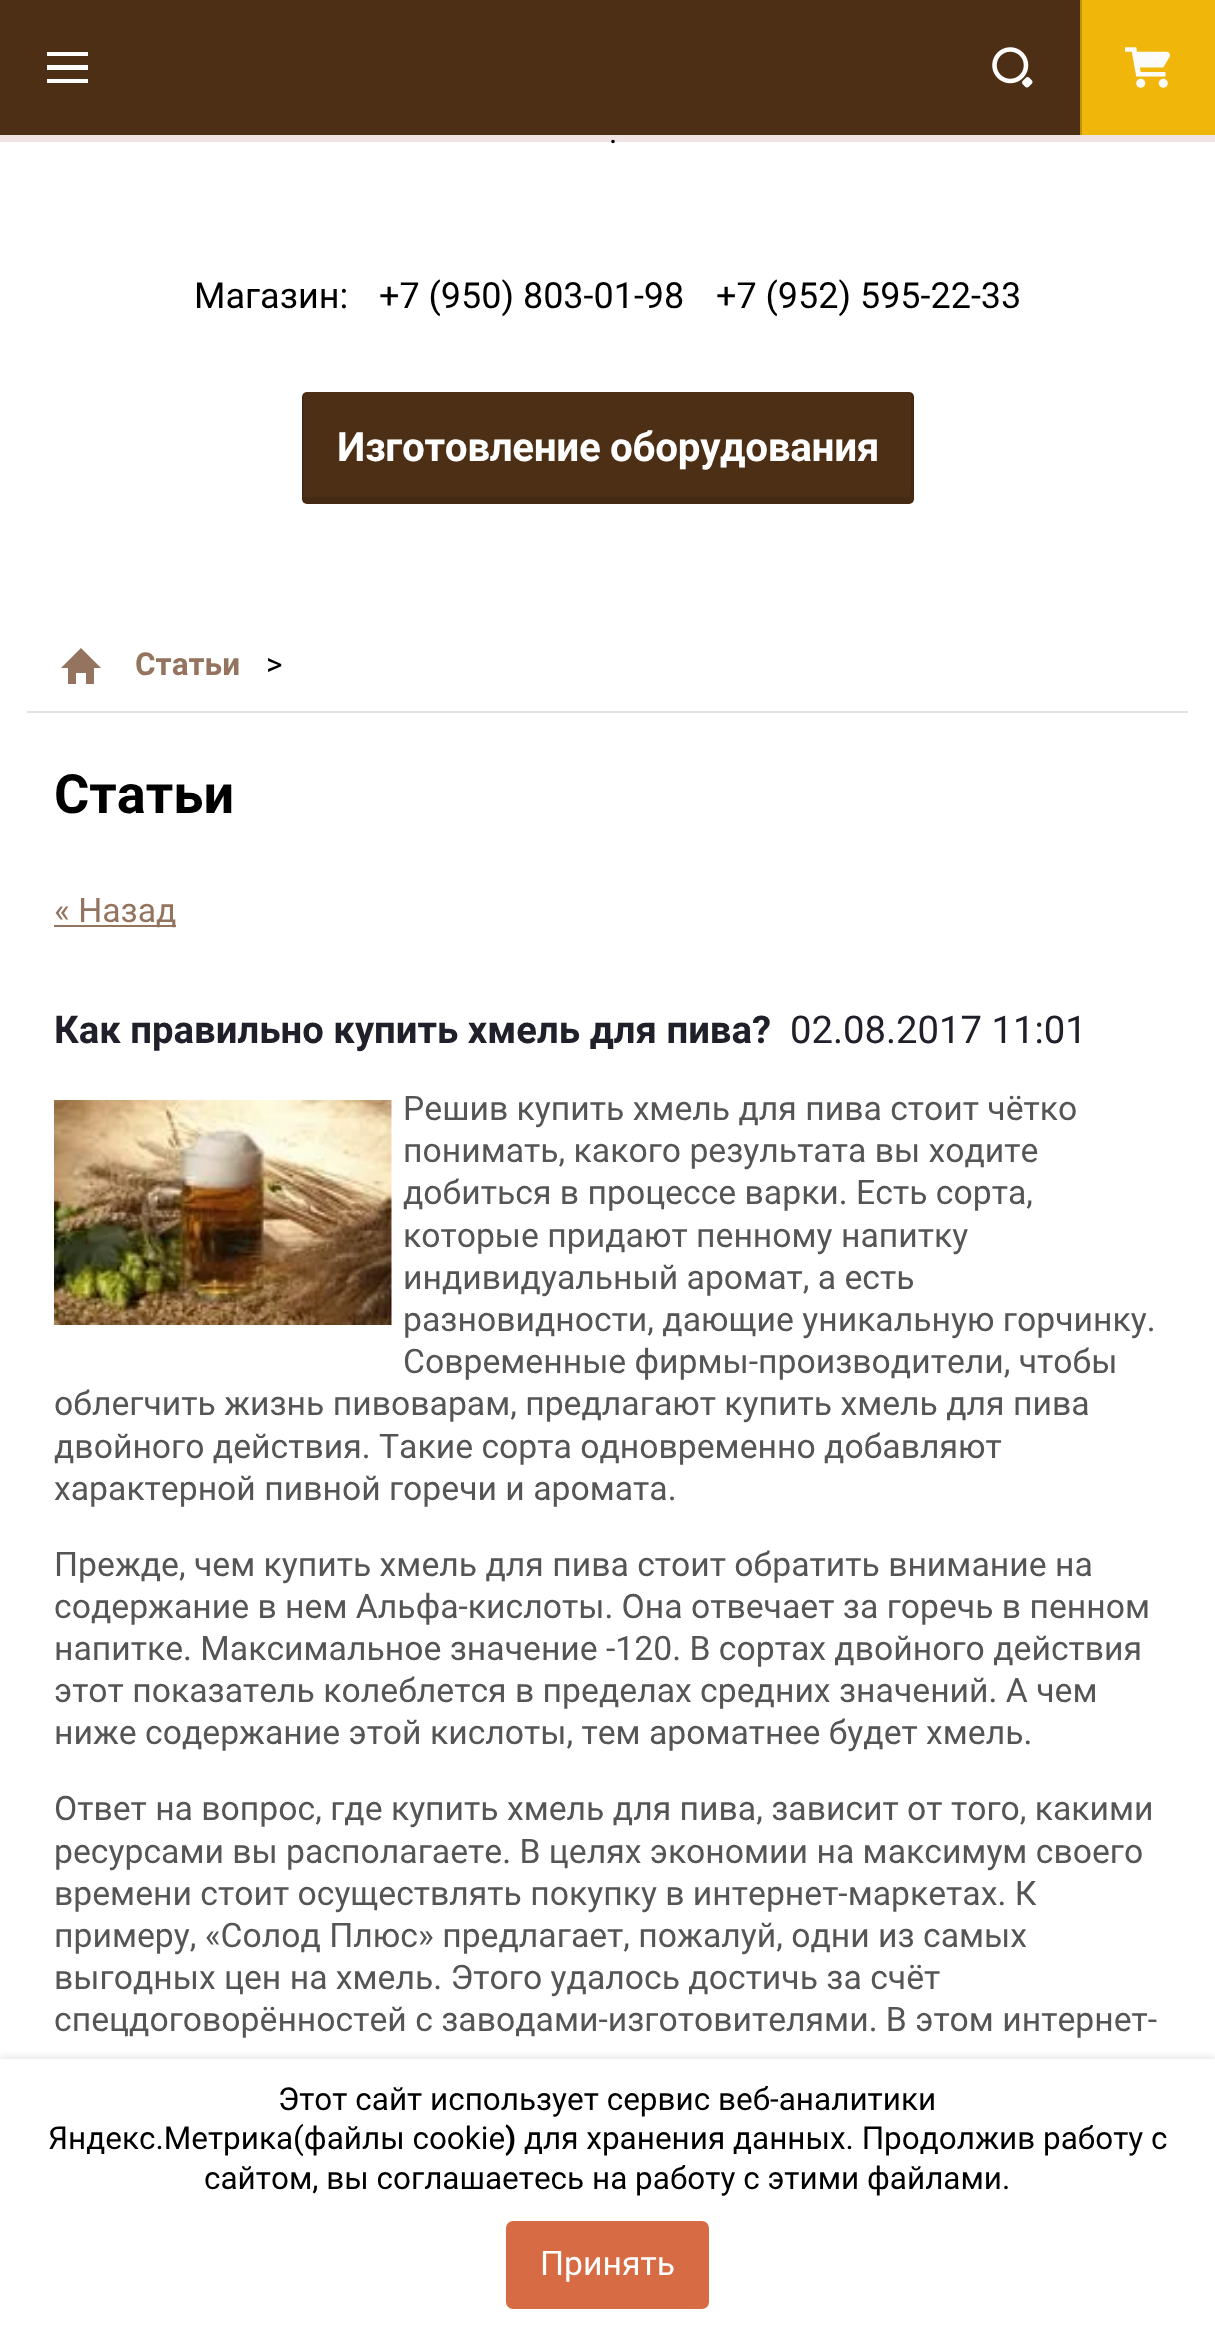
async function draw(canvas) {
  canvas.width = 1215
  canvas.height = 2329
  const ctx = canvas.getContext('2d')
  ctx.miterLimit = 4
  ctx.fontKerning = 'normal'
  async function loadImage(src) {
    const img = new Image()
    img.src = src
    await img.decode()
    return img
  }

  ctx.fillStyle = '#fff'
  ctx.fillRect(0, 0, 1215, 2329)
  ctx.fillStyle = '#7c17171f'
  ctx.fillRect(0, 135, 1215, 7)
  ctx.fillStyle = '#4d2f16'
  ctx.fillRect(0, 0, 1080, 135)
  ctx.fillStyle = '#fff'
  ctx.beginPath()
  ctx.moveTo(47, 83)
  ctx.lineTo(47, 79)
  ctx.lineTo(88, 79)
  ctx.lineTo(88, 83)
  ctx.closePath()
  ctx.moveTo(47, 65)
  ctx.lineTo(88, 65)
  ctx.lineTo(88, 70)
  ctx.lineTo(47, 70)
  ctx.closePath()
  ctx.moveTo(47, 52)
  ctx.lineTo(88, 52)
  ctx.lineTo(88, 56)
  ctx.lineTo(47, 56)
  ctx.closePath()
  ctx.fill('evenodd')
  ctx.drawImage(await loadImage('image0.png'), 992, 47, 41, 41)
  ctx.fillStyle = '#c09207'
  ctx.fillRect(1080, 0, 2, 135)
  ctx.fillStyle = '#f0b609'
  ctx.fillRect(1082, 0, 133, 135)
  ctx.drawImage(await loadImage('image1.png'), 1125, 47, 45, 41)
  ctx.font = '31.5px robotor'
  ctx.fillStyle = '#000'
  ctx.fillText('.', 609, 143)
  ctx.font = '36px robotor'
  ctx.fillText('Магазин:', 194, 308)
  ctx.fillText('+7 (950) 803-01-98', 379, 308)
  ctx.fillText('+7 (952) 595-22-33', 716, 308)
  ctx.fillStyle = '#4d2f16'
  ctx.beginPath()
  ctx.roundRect(302, 392, 612, 112, 5)
  ctx.fill()
  ctx.fillStyle = '#0000001c'
  ctx.beginPath()
  ctx.moveTo(304, 393)
  ctx.bezierCurveTo(303, 394, 302, 395, 302, 397)
  ctx.lineTo(302, 499)
  ctx.bezierCurveTo(302, 502, 304, 504, 307, 504)
  ctx.lineTo(909, 504)
  ctx.bezierCurveTo(912, 504, 914, 502, 914, 499)
  ctx.lineTo(914, 397)
  ctx.bezierCurveTo(914, 395, 913, 393, 911, 392)
  ctx.lineTo(911, 495)
  ctx.bezierCurveTo(911, 496, 910, 497, 909, 497)
  ctx.lineTo(306, 497)
  ctx.bezierCurveTo(305, 497, 304, 496, 304, 495)
  ctx.closePath()
  ctx.fill()
  ctx.letterSpacing = '-0.4px'
  ctx.font = 'bold 40.5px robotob'
  ctx.fillStyle = '#fff'
  ctx.fillText('Изготовление оборудования', 337, 461)
  ctx.fillStyle = '#e1e2e3'
  ctx.fillRect(27, 711, 1161, 2)
  ctx.fillStyle = '#94745f'
  ctx.beginPath()
  ctx.moveTo(94, 668)
  ctx.lineTo(94, 684)
  ctx.lineTo(86, 684)
  ctx.lineTo(86, 673)
  ctx.lineTo(76, 673)
  ctx.lineTo(76, 684)
  ctx.lineTo(68, 684)
  ctx.lineTo(68, 668)
  ctx.lineTo(61, 668)
  ctx.lineTo(81, 648)
  ctx.lineTo(101, 668)
  ctx.closePath()
  ctx.fill('evenodd')
  ctx.letterSpacing = '0px'
  ctx.font = 'bold 31.5px robotob'
  ctx.fillText('Статьи', 135, 675)
  ctx.font = '31.5px robotor'
  ctx.fillStyle = '#000'
  ctx.fillText('>', 266, 675)
  ctx.font = 'bold 54px robotob'
  ctx.fillText('Статьи', 54, 813)
  ctx.fillStyle = '#94745f'
  ctx.fillRect(54, 925, 122, 2)
  ctx.font = '33.75px robotor'
  ctx.fillText('« Назад', 54, 922)
  ctx.font = 'bold 38.25px robotob'
  ctx.fillStyle = '#20202a'
  ctx.fillText('Как правильно купить хмель для пива?', 54, 1043)
  ctx.font = '38.25px robotor'
  ctx.fillText('02.08.2017 11:01', 790, 1043)
  ctx.font = '33.75px robotor'
  ctx.fillStyle = '#555'
  ctx.fillText('Решив купить хмель для пива стоит чётко', 403, 1120)
  ctx.fillText('понимать, какого результата вы ходите', 403, 1162)
  ctx.fillText('добиться в процессе варки. Есть сорта,', 403, 1204)
  ctx.fillText('которые придают пенному напитку', 403, 1247)
  ctx.fillText('индивидуальный аромат, а есть', 403, 1289)
  ctx.fillText('разновидности, дающие уникальную горчинку.', 403, 1331)
  ctx.fillText('Современные фирмы-производители, чтобы', 403, 1373)
  ctx.fillText('облегчить жизнь пивоварам, предлагают купить хмель для пива', 54, 1415)
  ctx.fillText('двойного действия. Такие сорта одновременно добавляют', 54, 1458)
  ctx.fillText('характерной пивной горечи и аромата.', 54, 1500)
  ctx.drawImage(await loadImage('image2.png'), 54, 1100, 338, 225)
  ctx.fillText('Прежде, чем купить хмель для пива стоит обратить внимание на', 54, 1576)
  ctx.fillText('содержание в нем Альфа-кислоты. Она отвечает за горечь в пенном', 54, 1618)
  ctx.fillText('напитке. Максимальное значение -120. В сортах двойного действия', 54, 1660)
  ctx.fillText('этот показатель колеблется в пределах средних значений. А чем', 54, 1702)
  ctx.fillText('ниже содержание этой кислоты, тем ароматнее будет хмель.', 54, 1744)
  ctx.fillText('Ответ на вопрос, где купить хмель для пива, зависит от того, какими', 54, 1820)
  ctx.fillText('ресурсами вы располагаете. В целях экономии на максимум своего', 54, 1863)
  ctx.fillText('времени стоит осуществлять покупку в интернет-маркетах. К', 54, 1905)
  ctx.fillText('примеру, «Солод Плюс» предлагает, пожалуй, одни из самых', 54, 1947)
  ctx.fillText('выгодных цен на хмель. Этого удалось достичь за счёт', 54, 1989)
  ctx.fillText('спецдоговорённостей с заводами-изготовителями. В этом интернет-', 54, 2031)
  ctx.fillStyle = '#e6e5e5'
  ctx.filter = 'blur(3.5px)'
  ctx.beginPath()
  ctx.rect(0, 2057, 1215, 272)
  ctx.fill()
  ctx.filter = 'none'
  ctx.fillStyle = '#fff'
  ctx.fillRect(0, 2059, 1215, 270)
  ctx.font = '31.5px robotor'
  ctx.fillStyle = '#000'
  ctx.fillText('Этот сайт использует сервис веб-аналитики', 278, 2110)
  ctx.fillText('Яндекс.Метрика(файлы cookie', 48, 2149)
  ctx.font = 'bold 31.5px robotob'
  ctx.fillText(')', 505, 2149)
  ctx.font = '31.5px robotor'
  ctx.fillText('для хранения данных. Продолжив работу с', 524, 2149)
  ctx.fillText('сайтом, вы соглашаетесь на работу с этими файлами.', 204, 2189)
  ctx.fillStyle = '#d76b44'
  ctx.beginPath()
  ctx.roundRect(506, 2221, 203, 88, 7)
  ctx.fill()
  ctx.font = '33.75px robotor'
  ctx.fillStyle = '#fff'
  ctx.fillText('Принять', 540, 2275)
}

draw(document.querySelector('canvas'))
